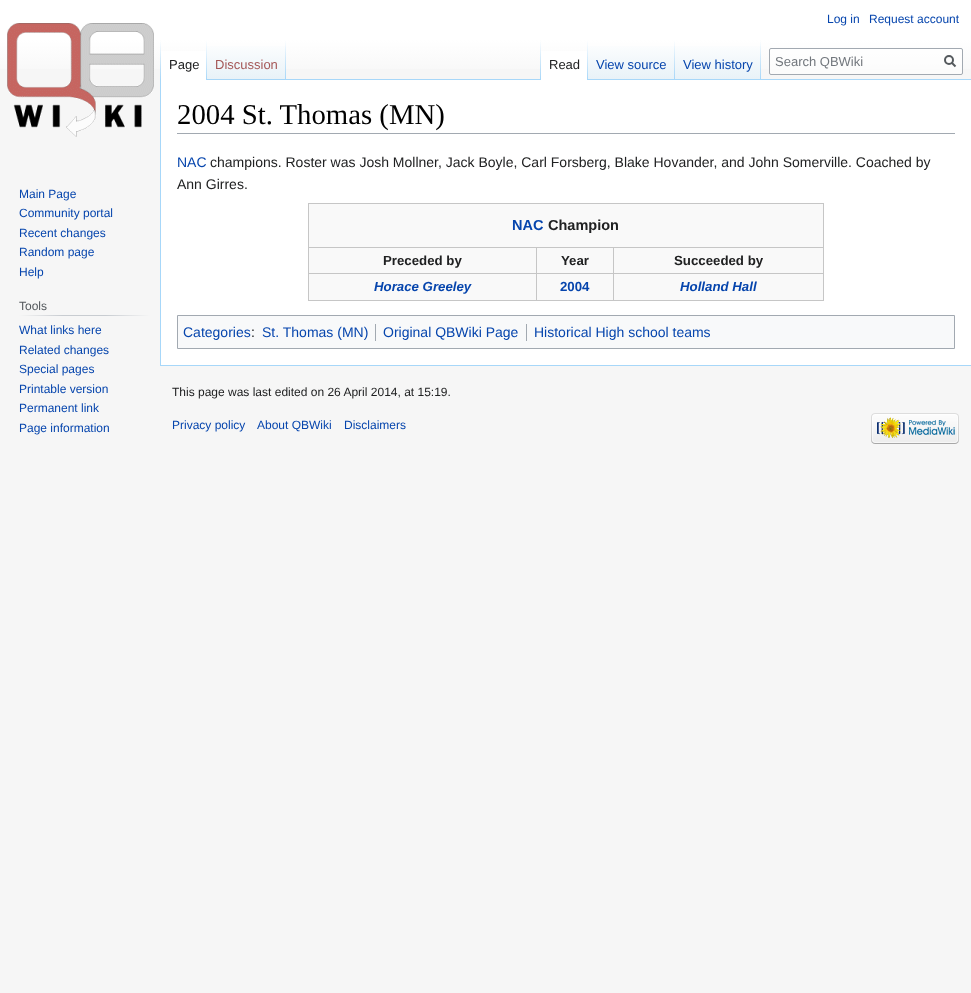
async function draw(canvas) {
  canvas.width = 971
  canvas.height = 993
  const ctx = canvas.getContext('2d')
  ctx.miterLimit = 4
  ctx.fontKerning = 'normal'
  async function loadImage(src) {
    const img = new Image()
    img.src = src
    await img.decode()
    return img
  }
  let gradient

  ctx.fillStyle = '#f6f6f6'
  ctx.fillRect(0, 0, 971, 993)
  gradient = ctx.createLinearGradient(486, 0, 486, 80)
  gradient.addColorStop(0.5, '#fff')
  gradient.addColorStop(1, '#f6f6f6')
  ctx.fillStyle = gradient
  ctx.fillRect(0, 0, 971, 69)
  ctx.font = '12px Liberation Sans'
  ctx.fillStyle = '#0645ad'
  ctx.fillText('Log in', 827, 23)
  ctx.fillText('Request account', 869, 23)
  ctx.fillStyle = '#a7d7f9'
  ctx.fillRect(160, 365, 811, 1)
  ctx.fillRect(160, 79, 1, 287)
  gradient = ctx.createLinearGradient(161, 40, 161, 80)
  gradient.addColorStop(0, '#a7d7f900')
  gradient.addColorStop(1, '#a7d7f9')
  ctx.fillStyle = gradient
  ctx.fillRect(160, 40, 1, 40)
  ctx.fillStyle = '#fff'
  ctx.fillRect(161, 51, 45, 29)
  gradient = ctx.createLinearGradient(207, 40, 207, 80)
  gradient.addColorStop(0, '#fff')
  gradient.addColorStop(1, '#a7d7f9')
  ctx.fillStyle = gradient
  ctx.fillRect(206, 40, 1, 40)
  ctx.font = '13px Liberation Sans'
  ctx.fillStyle = '#202122'
  ctx.fillText('Page', 169, 69)
  gradient = ctx.createLinearGradient(247, 80, 247, 40)
  gradient.addColorStop(0, '#77c1f6')
  gradient.addColorStop(0.03, '#e8f2f8')
  gradient.addColorStop(1, '#fff')
  ctx.fillStyle = gradient
  ctx.fillRect(207, 46, 79, 34)
  gradient = ctx.createLinearGradient(286, 40, 286, 80)
  gradient.addColorStop(0, '#a7d7f900')
  gradient.addColorStop(1, '#a7d7f9')
  ctx.fillStyle = gradient
  ctx.fillRect(285, 40, 1, 40)
  ctx.fillStyle = '#a55858'
  ctx.fillText('Discussion', 215, 69)
  ctx.fillStyle = '#a7d7f9'
  ctx.fillRect(286, 79, 685, 1)
  gradient = ctx.createLinearGradient(541, 40, 541, 80)
  gradient.addColorStop(0, '#a7d7f900')
  gradient.addColorStop(1, '#a7d7f9')
  ctx.fillStyle = gradient
  ctx.fillRect(540, 40, 1, 40)
  ctx.fillStyle = '#fff'
  ctx.fillRect(541, 51, 46, 29)
  gradient = ctx.createLinearGradient(588, 40, 588, 80)
  gradient.addColorStop(0, '#fff')
  gradient.addColorStop(1, '#a7d7f9')
  ctx.fillStyle = gradient
  ctx.fillRect(587, 40, 1, 40)
  ctx.fillStyle = '#202122'
  ctx.fillText('Read', 549, 69)
  gradient = ctx.createLinearGradient(632, 80, 632, 40)
  gradient.addColorStop(0, '#77c1f6')
  gradient.addColorStop(0.03, '#e8f2f8')
  gradient.addColorStop(1, '#fff')
  ctx.fillStyle = gradient
  ctx.fillRect(588, 46, 87, 33)
  gradient = ctx.createLinearGradient(675, 40, 675, 80)
  gradient.addColorStop(0, '#a7d7f900')
  gradient.addColorStop(1, '#a7d7f9')
  ctx.fillStyle = gradient
  ctx.fillRect(674, 40, 1, 40)
  ctx.fillStyle = '#0645ad'
  ctx.fillText('View source', 596, 69)
  gradient = ctx.createLinearGradient(718, 80, 718, 40)
  gradient.addColorStop(0, '#77c1f6')
  gradient.addColorStop(0.03, '#e8f2f8')
  gradient.addColorStop(1, '#fff')
  ctx.fillStyle = gradient
  ctx.fillRect(675, 46, 86, 33)
  gradient = ctx.createLinearGradient(761, 40, 761, 80)
  gradient.addColorStop(0, '#a7d7f900')
  gradient.addColorStop(1, '#a7d7f9')
  ctx.fillStyle = gradient
  ctx.fillRect(760, 40, 1, 40)
  ctx.fillStyle = '#0645ad'
  ctx.fillText('View history', 683, 69)
  ctx.fillStyle = '#ffffff80'
  ctx.beginPath()
  ctx.roundRect(769.5, 48.5, 193, 26, 1.5)
  ctx.fill()
  ctx.strokeStyle = '#a2a9b1'
  ctx.stroke()
  ctx.fillStyle = '#72777d'
  ctx.fillText('Search QBWiki', 775, 66)
  ctx.beginPath()
  ctx.moveTo(955.5, 66.5)
  ctx.lineTo(951.5, 62.5)
  ctx.strokeStyle = '#54595d'
  ctx.lineWidth = 2
  ctx.stroke()
  ctx.beginPath()
  ctx.arc(949, 60, 4, 0, 2 * Math.PI)
  ctx.stroke()
  ctx.drawImage(await loadImage('image0.png'), 7, 23, 147, 114)
  ctx.font = '12px Liberation Sans'
  ctx.fillStyle = '#0645ad'
  ctx.fillText('Main Page', 19, 198)
  ctx.fillText('Community portal', 19, 217)
  ctx.fillText('Recent changes', 19, 237)
  ctx.fillText('Random page', 19, 256)
  ctx.fillText('Help', 19, 276)
  gradient = ctx.createLinearGradient(19, 316, 150, 316)
  gradient.addColorStop(0, '#f6f6f6')
  gradient.addColorStop(0.33, '#c8ccd1')
  gradient.addColorStop(0.66, '#c8ccd1')
  gradient.addColorStop(1, '#f6f6f6')
  ctx.fillStyle = gradient
  ctx.fillRect(19, 315, 131, 1)
  ctx.fillStyle = '#54595d'
  ctx.fillText('Tools', 19, 310)
  ctx.fillStyle = '#0645ad'
  ctx.fillText('What links here', 19, 334)
  ctx.fillText('Related changes', 19, 354)
  ctx.fillText('Special pages', 19, 373)
  ctx.fillText('Printable version', 19, 393)
  ctx.fillText('Permanent link', 19, 412)
  ctx.fillText('Page information', 19, 432)
  ctx.fillStyle = '#fff'
  ctx.fillRect(161, 80, 810, 285)
  ctx.fillStyle = '#a2a9b1'
  ctx.fillRect(177, 133, 778, 1)
  ctx.font = '28.75px Liberation Serif'
  ctx.fillStyle = '#000'
  ctx.fillText('2004 St. Thomas (MN)', 177, 124)
  ctx.font = '14px Liberation Sans'
  ctx.fillStyle = '#0645ad'
  ctx.fillText('NAC', 177, 167)
  ctx.fillStyle = '#202122'
  ctx.fillText('champions. Roster was Josh Mollner, Jack Boyle, Carl Forsberg, Blake Hovander, and John Somerville. Coached by', 210, 167)
  ctx.fillText('Ann Girres.', 177, 189)
  ctx.fillStyle = '#f9f9f9'
  ctx.fillRect(309, 204, 514, 96)
  ctx.fillStyle = '#c6c6c6'
  ctx.fillRect(308, 203, 516, 1)
  ctx.fillRect(823, 203, 1, 98)
  ctx.fillRect(308, 300, 516, 1)
  ctx.fillRect(308, 203, 1, 98)
  ctx.font = 'bold 14.5px Liberation Sans'
  ctx.fillStyle = '#0645ad'
  ctx.fillText('NAC', 512, 230)
  ctx.fillStyle = '#202122'
  ctx.fillText('Champion', 548, 230)
  ctx.fillStyle = '#c6c6c6'
  ctx.fillRect(613, 247, 211, 1)
  ctx.fillRect(613, 273, 211, 1)
  ctx.fillRect(613, 273, 1, 28)
  ctx.fillRect(536, 273, 78, 1)
  ctx.fillRect(613, 247, 1, 27)
  ctx.fillRect(536, 247, 78, 1)
  ctx.fillRect(536, 273, 1, 28)
  ctx.fillRect(308, 273, 229, 1)
  ctx.fillRect(536, 247, 1, 27)
  ctx.fillRect(308, 247, 229, 1)
  ctx.font = 'bold 13.25px Liberation Sans'
  ctx.fillStyle = '#202122'
  ctx.fillText('Preceded by', 383, 265)
  ctx.fillText('Year', 561, 265)
  ctx.fillText('Succeeded by', 674, 265)
  ctx.font = 'italic bold 13.25px Liberation Sans'
  ctx.fillStyle = '#0645ad'
  ctx.fillText('Horace Greeley', 374, 291)
  ctx.font = 'bold 13.25px Liberation Sans'
  ctx.fillText('2004', 560, 291)
  ctx.font = 'italic bold 13.25px Liberation Sans'
  ctx.fillText('Holland Hall', 680, 291)
  ctx.fillStyle = '#f8f9fa'
  ctx.beginPath()
  ctx.rect(177.5, 315.5, 777, 33)
  ctx.fill()
  ctx.strokeStyle = '#a2a9b1'
  ctx.lineWidth = 1
  ctx.stroke()
  ctx.font = '14px Liberation Sans'
  ctx.fillStyle = '#0645ad'
  ctx.fillText('Categories', 183, 337)
  ctx.fillStyle = '#202122'
  ctx.fillText(':', 251, 337)
  ctx.fillStyle = '#0645ad'
  ctx.fillText('St. Thomas (MN)', 262, 337)
  ctx.fillStyle = '#a2a9b1'
  ctx.fillRect(375, 324, 1, 17)
  ctx.fillStyle = '#0645ad'
  ctx.fillText('Original QBWiki Page', 383, 337)
  ctx.fillStyle = '#a2a9b1'
  ctx.fillRect(526, 324, 1, 17)
  ctx.fillStyle = '#0645ad'
  ctx.fillText('Historical High school teams', 534, 337)
  ctx.font = '12px Liberation Sans'
  ctx.fillStyle = '#202122'
  ctx.fillText('This page was last edited on 26 April 2014, at 15:19.', 172, 396)
  ctx.fillStyle = '#0645ad'
  ctx.fillText('Privacy policy', 172, 429)
  ctx.fillText('About QBWiki', 257, 429)
  ctx.fillText('Disclaimers', 344, 429)
  ctx.drawImage(await loadImage('image1.png'), 871, 413, 88, 31)
}

draw(document.querySelector('canvas'))
